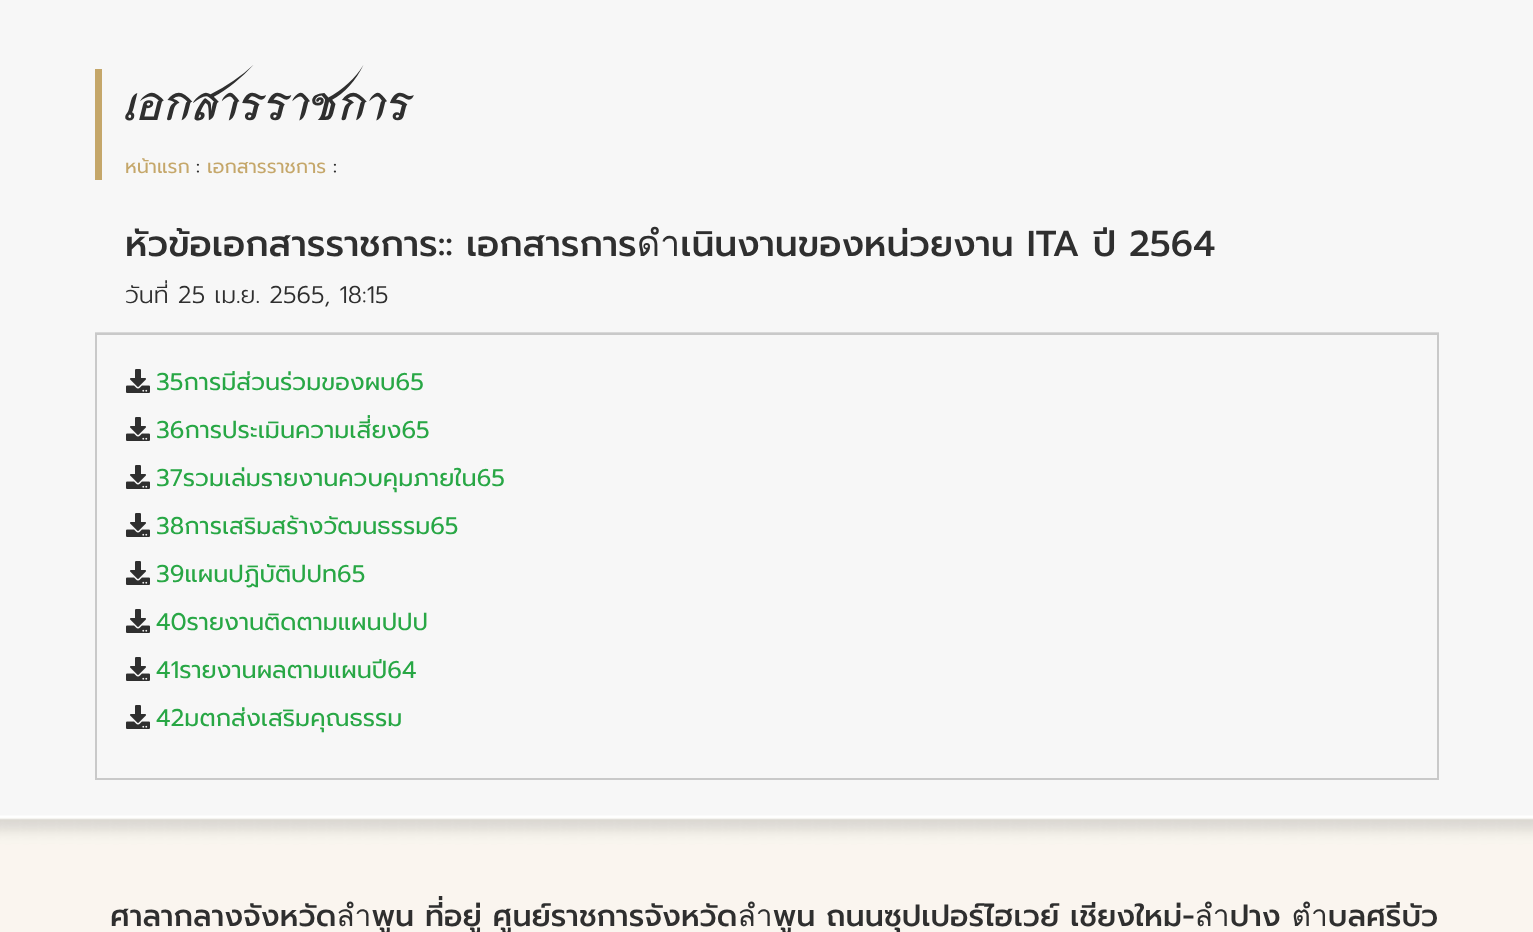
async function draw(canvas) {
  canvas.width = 1533
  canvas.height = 932
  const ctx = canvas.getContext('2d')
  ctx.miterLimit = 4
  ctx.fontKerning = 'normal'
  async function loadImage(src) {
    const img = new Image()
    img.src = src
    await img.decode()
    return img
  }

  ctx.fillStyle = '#f7f7f7'
  ctx.fillRect(0, 0, 1533, 932)
  ctx.fillStyle = '#c5a76a'
  ctx.fillRect(95, 69, 7, 111)
  ctx.font = 'bold 54px Srisakdi'
  ctx.fillStyle = '#2f2f2f'
  ctx.fillText('เอกสารราชการ', 125, 120)
  ctx.font = '19.25px Prompt'
  ctx.fillStyle = '#c5a76a'
  ctx.fillText('หน้าแรก', 125, 173)
  ctx.fillStyle = '#2f2f2f'
  ctx.fillText(':', 196, 173)
  ctx.fillStyle = '#c5a76a'
  ctx.fillText('เอกสารราชการ', 207, 173)
  ctx.fillStyle = '#2f2f2f'
  ctx.fillText(':', 333, 173)
  ctx.fillStyle = '#d8d8d8'
  ctx.fillRect(95, 332, 1344, 1)
  ctx.font = '500 36px Prompt'
  ctx.fillStyle = '#2f2f2f'
  ctx.fillText('หัวข้อเอกสารราชการ:: เอกสารการดำเนินงานของหน่วยงาน ITA ปี 2564', 125, 256)
  ctx.font = '300 24px Prompt'
  ctx.fillText('วันที่ 25 เม.ย. 2565, 18:15', 125, 303)
  ctx.strokeStyle = '#c9c9c9'
  ctx.lineWidth = 2
  ctx.strokeRect(96, 334, 1342, 445)
  ctx.drawImage(await loadImage('image0.png'), 126, 369, 24, 24)
  ctx.font = '24px Prompt'
  ctx.fillStyle = '#28a745'
  ctx.fillText('35การมีส่วนร่วมของผบ65', 156, 390)
  ctx.drawImage(await loadImage('image0.png'), 126, 417, 24, 24)
  ctx.fillText('36การประเมินความเสี่ยง65', 156, 438)
  ctx.drawImage(await loadImage('image0.png'), 126, 465, 24, 24)
  ctx.fillText('37รวมเล่มรายงานควบคุมภายใน65', 156, 486)
  ctx.drawImage(await loadImage('image0.png'), 126, 513, 24, 24)
  ctx.fillText('38การเสริมสร้างวัฒนธรรม65', 156, 534)
  ctx.drawImage(await loadImage('image0.png'), 126, 561, 24, 24)
  ctx.fillText('39แผนปฏิบัติปปท65', 156, 582)
  ctx.drawImage(await loadImage('image0.png'), 126, 609, 24, 24)
  ctx.fillText('40รายงานติดตามแผนปปป', 156, 630)
  ctx.drawImage(await loadImage('image0.png'), 126, 657, 24, 24)
  ctx.fillText('41รายงานผลตามแผนปี64', 156, 678)
  ctx.drawImage(await loadImage('image0.png'), 126, 705, 24, 24)
  ctx.fillText('42มตกส่งเสริมคุณธรรม', 156, 726)
  ctx.drawImage(await loadImage('image1.png'), 0, 815, 1533, 117)
  ctx.font = '500 30px Prompt'
  ctx.fillStyle = '#2f2f2f'
  ctx.fillText('ศาลากลางจังหวัดลำพูน ที่อยู่ ศูนย์ราชการจังหวัดลำพูน ถนนซุปเปอร์ไฮเวย์ เชียงใหม่-ลำปาง ตำบลศรีบัว', 110, 926)
}

draw(document.querySelector('canvas'))
